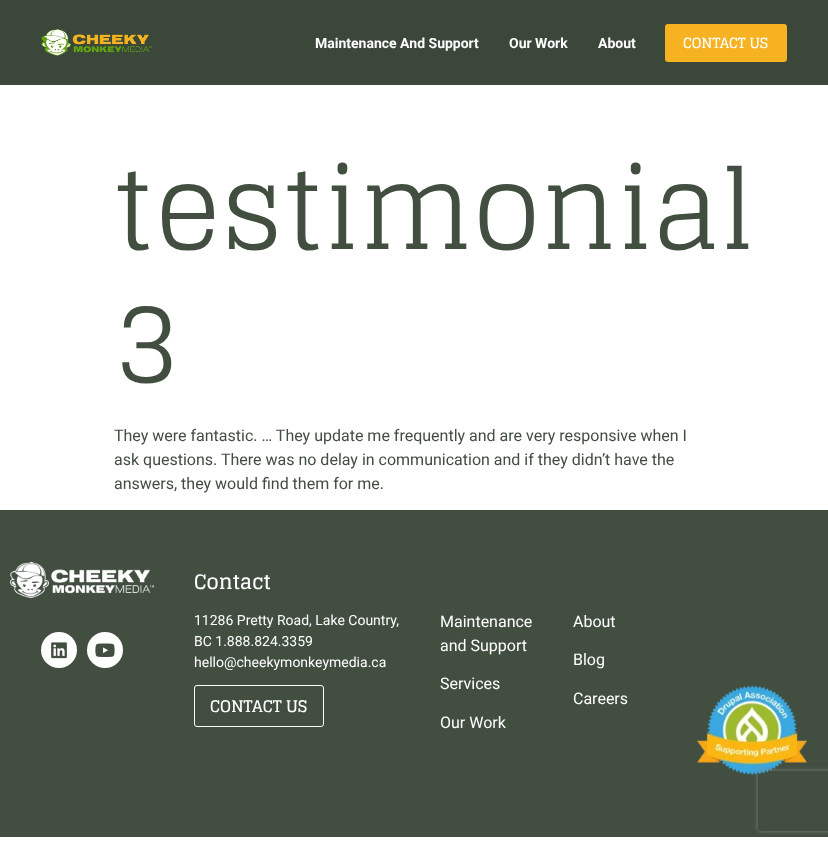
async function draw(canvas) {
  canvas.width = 828
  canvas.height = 845
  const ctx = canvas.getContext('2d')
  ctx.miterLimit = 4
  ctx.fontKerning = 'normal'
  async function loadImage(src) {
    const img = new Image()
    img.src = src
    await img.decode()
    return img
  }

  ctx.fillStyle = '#fff'
  ctx.fillRect(0, 0, 828, 845)
  ctx.fillStyle = '#293728eb'
  ctx.fillRect(0, 0, 828, 85)
  ctx.drawImage(await loadImage('image0.png'), 41, 29, 111, 27)
  ctx.font = 'bold 14px Roboto'
  ctx.fillStyle = '#fff'
  ctx.fillText('Maintenance And Support', 315, 48)
  ctx.fillText('Our Work', 509, 48)
  ctx.fillText('About', 598, 48)
  ctx.fillStyle = '#f6b221'
  ctx.beginPath()
  ctx.roundRect(665, 24, 122, 38, 3)
  ctx.fill()
  ctx.font = 'bold 14px Glegoo'
  ctx.fillStyle = '#fff'
  ctx.fillText('CONTACT US', 683, 48)
  ctx.font = '111px Glegoo'
  ctx.fillStyle = '#414e40'
  ctx.fillText('testimonial', 114, 249)
  ctx.fillText('3', 114, 382)
  ctx.font = '16px Roboto'
  ctx.fillText('They were fantastic. … They update me frequently and are very responsive when I', 114, 441)
  ctx.fillText('ask questions. There was no delay in communication and if they didn’t have the', 114, 465)
  ctx.fillText('answers, they would find them for me.', 114, 489)
  ctx.fillRect(0, 510, 828, 327)
  ctx.drawImage(await loadImage('image1.png'), 10, 562, 144, 36)
  ctx.fillStyle = '#fff'
  ctx.beginPath()
  ctx.arc(59, 650, 18, 0, 2 * Math.PI)
  ctx.fill()
  ctx.drawImage(await loadImage('image2.png'), 51, 642, 16, 17)
  ctx.beginPath()
  ctx.arc(105, 650, 18, 0, 2 * Math.PI)
  ctx.fill()
  ctx.drawImage(await loadImage('image3.png'), 95, 643, 20, 14)
  ctx.font = 'bold 20px Glegoo'
  ctx.fillText('Contact', 194, 589)
  ctx.font = '14px Roboto'
  ctx.fillText('11286 Pretty Road, Lake Country,', 194, 625)
  ctx.fillText('BC 1.888.824.3359', 194, 646)
  ctx.fillText('hello@cheekymonkeymedia.ca', 194, 667)
  ctx.beginPath()
  ctx.roundRect(194.5, 685.5, 129, 41, 2.5)
  ctx.strokeStyle = '#fff'
  ctx.stroke()
  ctx.font = 'bold 16px Glegoo'
  ctx.fillText('CONTACT US', 210, 712)
  ctx.font = '16px Roboto'
  ctx.fillText('Maintenance', 440, 627)
  ctx.fillText('and Support', 440, 651)
  ctx.fillText('Services', 440, 689)
  ctx.fillText('Our Work', 440, 728)
  ctx.fillText('About', 573, 627)
  ctx.fillText('Blog', 573, 665)
  ctx.fillText('Careers', 573, 704)
  ctx.drawImage(await loadImage('image4.png'), 697, 685, 110, 91)
  ctx.save()
  ctx.beginPath()
  ctx.moveTo(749, 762)
  ctx.lineTo(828, 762)
  ctx.lineTo(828, 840)
  ctx.lineTo(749, 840)
  ctx.closePath()
  ctx.moveTo(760, 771)
  ctx.lineTo(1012, 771)
  ctx.bezierCurveTo(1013, 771, 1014, 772, 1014, 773)
  ctx.lineTo(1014, 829)
  ctx.bezierCurveTo(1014, 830, 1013, 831, 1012, 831)
  ctx.lineTo(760, 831)
  ctx.bezierCurveTo(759, 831, 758, 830, 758, 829)
  ctx.lineTo(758, 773)
  ctx.bezierCurveTo(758, 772, 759, 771, 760, 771)
  ctx.closePath()
  ctx.clip('evenodd')
  ctx.fillStyle = '#808080'
  ctx.filter = 'blur(2.5px)'
  ctx.beginPath()
  ctx.roundRect(758, 771, 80, 60, 2)
  ctx.fill()
  ctx.filter = 'none'
  ctx.restore()
}

draw(document.querySelector('canvas'))
